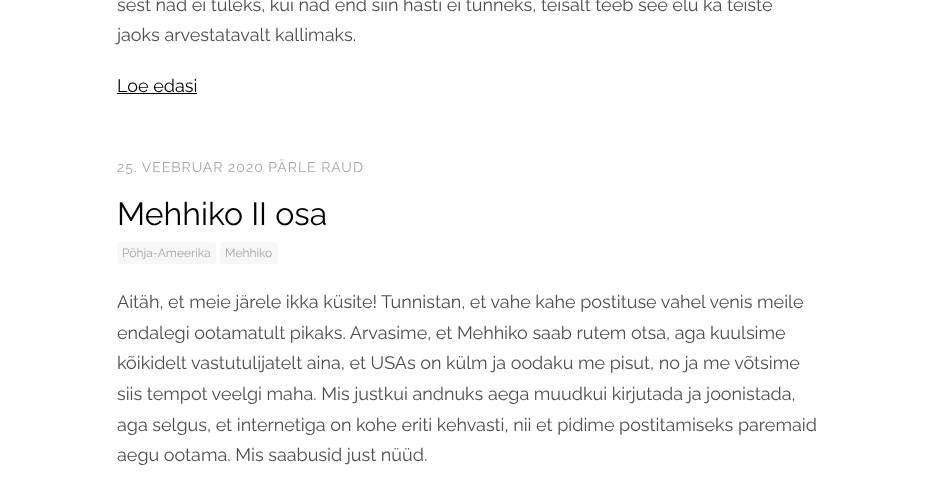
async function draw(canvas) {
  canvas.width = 934
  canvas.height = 480
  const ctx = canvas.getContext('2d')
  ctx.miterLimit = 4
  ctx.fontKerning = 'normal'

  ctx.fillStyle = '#fff'
  ctx.fillRect(0, 0, 934, 480)
  ctx.font = '18px Raleway'
  ctx.fillStyle = '#4d4d4d'
  ctx.fillText('sest nad ei tuleks, kui nad end siin hästi ei tunneks, teisalt teeb see elu ka teiste', 117, 11)
  ctx.fillText('jaoks arvestatavalt kallimaks.', 117, 41)
  ctx.fillStyle = '#000'
  ctx.fillText('Loe edasi', 117, 92)
  ctx.fillRect(117, 93, 80, 1)
  ctx.letterSpacing = '1px'
  ctx.font = '14px Raleway'
  ctx.fillStyle = '#a6a6a6'
  ctx.fillText('25. VEEBRUAR 2020 PÄRLE RAUD', 117, 172)
  ctx.letterSpacing = '0px'
  ctx.font = '32px Raleway'
  ctx.fillStyle = '#000'
  ctx.fillText('Mehhiko II osa', 117, 225)
  ctx.fillStyle = '#f7f7f7'
  ctx.beginPath()
  ctx.roundRect(117, 242, 99, 22, 3)
  ctx.fill()
  ctx.font = '12px Raleway'
  ctx.fillStyle = '#a6a6a6'
  ctx.fillText('Põhja-Ameerika', 122, 257)
  ctx.fillStyle = '#f7f7f7'
  ctx.beginPath()
  ctx.roundRect(220, 242, 58, 22, 3)
  ctx.fill()
  ctx.fillStyle = '#a6a6a6'
  ctx.fillText('Mehhiko', 225, 257)
  ctx.font = '18px Raleway'
  ctx.fillStyle = '#4d4d4d'
  ctx.fillText('Aitäh, et meie järele ikka küsite! Tunnistan, et vahe kahe postituse vahel venis meile', 117, 308)
  ctx.fillText('endalegi ootamatult pikaks. Arvasime, et Mehhiko saab rutem otsa, aga kuulsime', 117, 339)
  ctx.fillText('kõikidelt vastutulijatelt aina, et USAs on külm ja oodaku me pisut, no ja me võtsime', 117, 369)
  ctx.fillText('siis tempot veelgi maha. Mis justkui andnuks aega muudkui kirjutada ja joonistada,', 117, 400)
  ctx.fillText('aga selgus, et internetiga on kohe eriti kehvasti, nii et pidime postitamiseks paremaid', 117, 431)
  ctx.fillText('aegu ootama. Mis saabusid just nüüd.', 117, 461)
}

draw(document.querySelector('canvas'))
